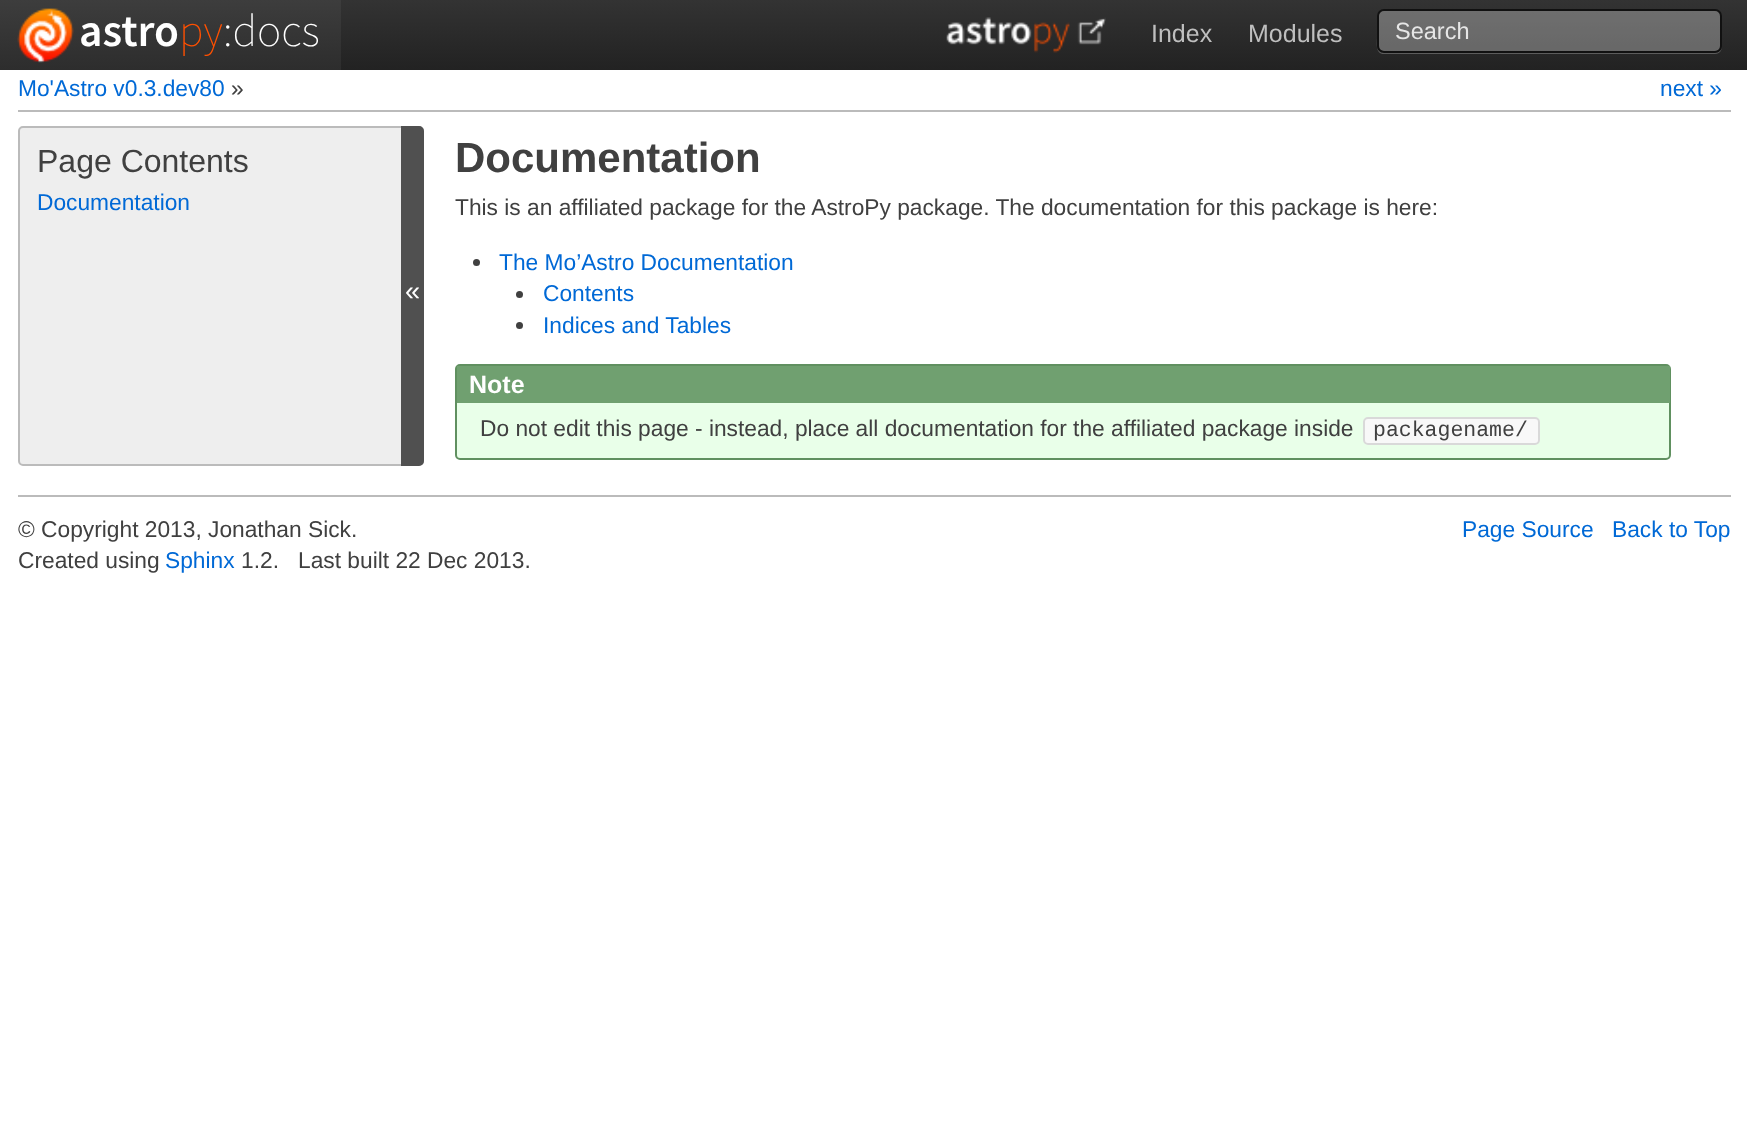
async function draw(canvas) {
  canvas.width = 1747
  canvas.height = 1126
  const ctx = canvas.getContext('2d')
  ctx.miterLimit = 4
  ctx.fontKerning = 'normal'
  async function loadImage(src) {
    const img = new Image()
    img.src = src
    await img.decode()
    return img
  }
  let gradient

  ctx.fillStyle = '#fff'
  ctx.fillRect(0, 0, 1747, 1126)
  gradient = ctx.createLinearGradient(874, 0, 874, 70)
  gradient.addColorStop(0, '#333')
  gradient.addColorStop(1, '#222')
  ctx.fillStyle = gradient
  ctx.fillRect(341, 0, 1406, 70)
  gradient = ctx.createLinearGradient(874, 0, 874, 70)
  gradient.addColorStop(0, '#3d3d3d')
  gradient.addColorStop(1, '#2d2d2d')
  ctx.fillStyle = gradient
  ctx.fillRect(0, 0, 341, 70)
  ctx.drawImage(await loadImage('image0.png'), 17, 8, 57, 55)
  ctx.font = '600 45.5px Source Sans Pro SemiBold'
  ctx.fillStyle = '#fff'
  ctx.fillText('astro', 79, 46)
  ctx.font = '200 45.5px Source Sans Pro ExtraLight'
  ctx.fillStyle = '#ff5000'
  ctx.fillText('py', 179, 46)
  ctx.fillStyle = '#fff'
  ctx.fillText(':docs', 223, 46)
  ctx.drawImage(await loadImage('image1.png'), 946, 17, 160, 36)
  ctx.font = '25px Liberation Sans'
  ctx.fillStyle = '#bfbfbf'
  ctx.fillText('Index', 1151, 42)
  ctx.fillText('Modules', 1248, 42)
  ctx.fillStyle = '#5c5c5c'
  ctx.beginPath()
  ctx.moveTo(1377, 16)
  ctx.lineTo(1377, 37)
  ctx.bezierCurveTo(1377, 43, 1375, 54, 1384, 54)
  ctx.lineTo(1715, 54)
  ctx.bezierCurveTo(1720, 54, 1722, 50, 1722, 46)
  ctx.bezierCurveTo(1722, 49, 1719, 52, 1715, 52)
  ctx.lineTo(1384, 52)
  ctx.bezierCurveTo(1380, 52, 1377, 49, 1377, 46)
  ctx.closePath()
  ctx.fill()
  ctx.fillStyle = '#ffffff4d'
  ctx.beginPath()
  ctx.roundRect(1378, 10, 343, 42, 6)
  ctx.fill()
  ctx.strokeStyle = '#111'
  ctx.lineWidth = 2
  ctx.stroke()
  ctx.font = '23.5px Liberation Sans'
  ctx.fillStyle = '#e6e6e6'
  ctx.fillText('Search', 1395, 39)
  ctx.fillStyle = '#bbb'
  ctx.fillRect(18, 110, 1713, 2)
  ctx.font = '22.75px Liberation Sans'
  ctx.fillStyle = '#0069d6'
  ctx.fillText('Mo\'Astro v0.3.dev80', 18, 96)
  ctx.fillStyle = '#404040'
  ctx.fillText('»', 231, 96)
  ctx.fillStyle = '#0069d6'
  ctx.fillText('next »', 1660, 96)
  ctx.fillStyle = '#eee'
  ctx.beginPath()
  ctx.roundRect(19, 127, 404, 338, 4)
  ctx.fill()
  ctx.strokeStyle = '#bbb'
  ctx.stroke()
  ctx.font = '32px Liberation Sans'
  ctx.fillStyle = '#404040'
  ctx.fillText('Page Contents', 37, 172)
  ctx.font = '22.75px Liberation Sans'
  ctx.fillStyle = '#0069d6'
  ctx.fillText('Documentation', 37, 210)
  ctx.fillStyle = '#505050'
  ctx.beginPath()
  ctx.roundRect(402, 127, 21, 338, [0, 4, 4, 0])
  ctx.fill()
  ctx.strokeStyle = '#505050'
  ctx.stroke()
  ctx.font = '27px Liberation Sans'
  ctx.fillStyle = '#fff'
  ctx.fillText('«', 405, 300)
  ctx.font = 'bold 42px Liberation Sans'
  ctx.fillStyle = '#404040'
  ctx.fillText('Documentation', 455, 172)
  ctx.font = '22.75px Liberation Sans'
  ctx.fillText('This is an affiliated package for the AstroPy package. The documentation for this package is here:', 455, 215)
  ctx.beginPath()
  ctx.arc(476.5, 262.5, 3.5, 0, 2 * Math.PI)
  ctx.fill()
  ctx.fillStyle = '#0069d6'
  ctx.fillText('The Mo’Astro Documentation', 499, 270)
  ctx.fillStyle = '#404040'
  ctx.beginPath()
  ctx.arc(519.5, 294.5, 3.5, 0, 2 * Math.PI)
  ctx.fill()
  ctx.fillStyle = '#0069d6'
  ctx.fillText('Contents', 543, 301)
  ctx.fillStyle = '#404040'
  ctx.beginPath()
  ctx.arc(519.5, 325.5, 3.5, 0, 2 * Math.PI)
  ctx.fill()
  ctx.fillStyle = '#0069d6'
  ctx.fillText('Indices and Tables', 543, 333)
  ctx.fillStyle = '#e9ffe9'
  ctx.beginPath()
  ctx.roundRect(456, 365, 1214, 94, 4)
  ctx.fill()
  ctx.strokeStyle = '#609060'
  ctx.stroke()
  ctx.fillStyle = '#70a070'
  ctx.fillRect(457, 366, 1213, 37)
  ctx.font = 'bold 25px Liberation Sans'
  ctx.fillStyle = '#fff'
  ctx.fillText('Note', 469, 393)
  ctx.font = '22.75px Liberation Sans'
  ctx.fillStyle = '#404040'
  ctx.fillText('Do not edit this page - instead, place all documentation for the affiliated package inside', 480, 436)
  ctx.fillStyle = '#f8f8f8'
  ctx.beginPath()
  ctx.roundRect(1363, 417, 177, 28, 5)
  ctx.fill()
  ctx.beginPath()
  ctx.roundRect(1364, 418, 175, 26, 4)
  ctx.strokeStyle = '#0000001f'
  ctx.stroke()
  ctx.font = '21.5px Liberation Mono'
  ctx.fillStyle = '#404040'
  ctx.fillText('packagename/', 1373, 436)
  ctx.fillStyle = '#bbb'
  ctx.fillRect(18, 495, 1713, 2)
  ctx.font = '22.75px Liberation Sans'
  ctx.fillStyle = '#404040'
  ctx.fillText('© Copyright 2013, Jonathan Sick.', 18, 537)
  ctx.fillText('Created using', 18, 568)
  ctx.fillStyle = '#0069d6'
  ctx.fillText('Sphinx', 165, 568)
  ctx.fillStyle = '#404040'
  ctx.fillText('1.2.', 241, 568)
  ctx.fillText('Last built 22 Dec 2013.', 298, 568)
  ctx.fillStyle = '#0069d6'
  ctx.fillText('Page Source', 1462, 537)
  ctx.fillText('Back to Top', 1612, 537)
}

draw(document.querySelector('canvas'))
